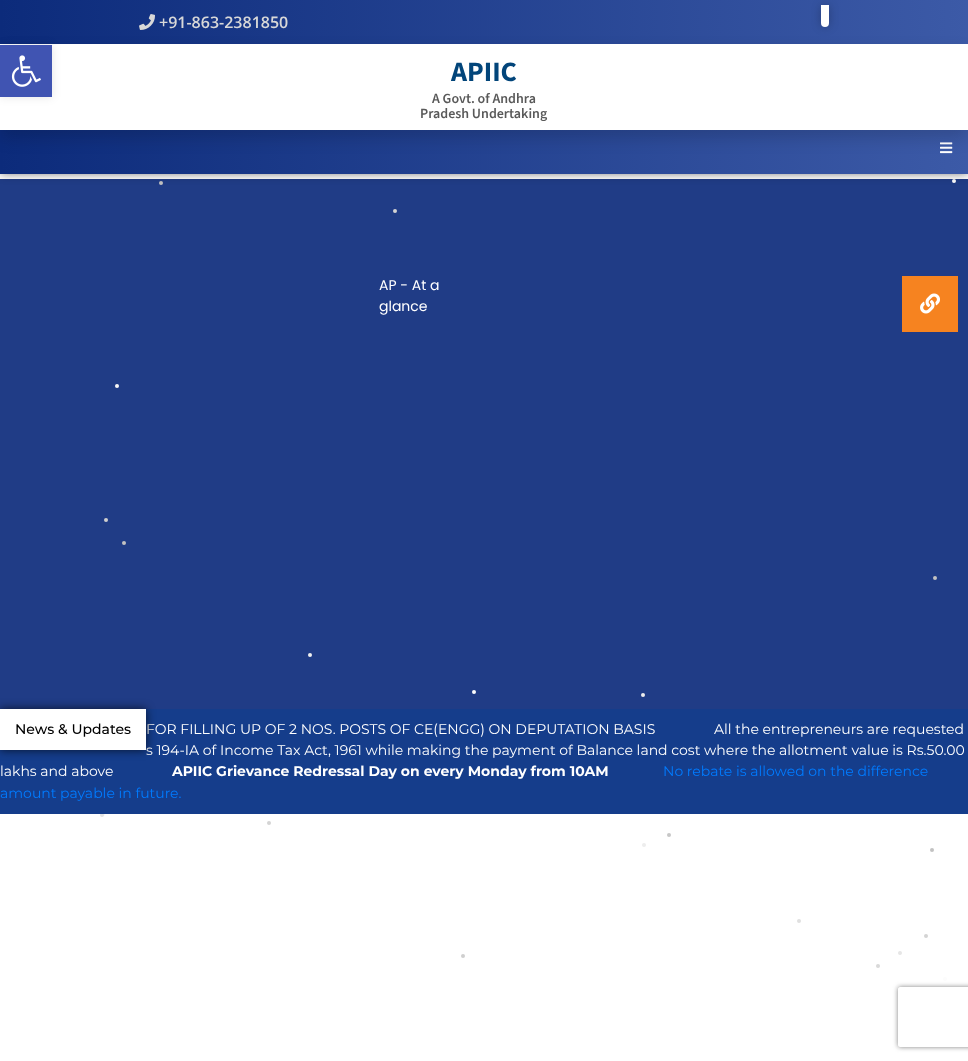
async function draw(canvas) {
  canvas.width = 968
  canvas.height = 1061
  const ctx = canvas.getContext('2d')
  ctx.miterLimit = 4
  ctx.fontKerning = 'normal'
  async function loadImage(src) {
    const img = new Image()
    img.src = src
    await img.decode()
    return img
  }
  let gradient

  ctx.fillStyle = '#fff'
  ctx.fillRect(0, 0, 968, 1061)
  ctx.fillStyle = '#203c86'
  ctx.fillRect(0, 179, 968, 530)
  ctx.fillStyle = '#fcfcfc'
  ctx.beginPath()
  ctx.arc(954, 181, 2, 0, 2 * Math.PI)
  ctx.fill()
  ctx.fillStyle = '#c2c2c2'
  ctx.beginPath()
  ctx.arc(161, 183, 2, 0, 2 * Math.PI)
  ctx.fill()
  ctx.fillStyle = '#00000080'
  ctx.filter = 'blur(5px)'
  ctx.beginPath()
  ctx.rect(0, 0, 968, 174)
  ctx.fill()
  ctx.filter = 'none'
  ctx.fillStyle = '#fff'
  ctx.fillRect(0, 44, 968, 86)
  gradient = ctx.createLinearGradient(0, 22, 968, 22)
  gradient.addColorStop(0, '#0c2b7b')
  gradient.addColorStop(1, '#3c5aa7')
  ctx.fillStyle = gradient
  ctx.fillRect(0, 0, 968, 44)
  ctx.fillStyle = '#0000001a'
  ctx.filter = 'blur(5px)'
  ctx.beginPath()
  ctx.rect(0, 45, 52, 52)
  ctx.fill()
  ctx.filter = 'none'
  ctx.drawImage(await loadImage('image1.png'), 139, 14, 16, 16)
  gradient = ctx.createLinearGradient(0, 152, 968, 152)
  gradient.addColorStop(0, '#0c2b7b')
  gradient.addColorStop(1, '#3c5aa7')
  ctx.fillStyle = gradient
  ctx.fillRect(0, 130, 968, 44)
  ctx.drawImage(await loadImage('image2.png'), 940, 142, 13, 12)
  ctx.save()
  ctx.beginPath()
  ctx.moveTo(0, 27)
  ctx.lineTo(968, 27)
  ctx.lineTo(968, 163)
  ctx.lineTo(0, 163)
  ctx.closePath()
  ctx.moveTo(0, 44)
  ctx.lineTo(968, 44)
  ctx.lineTo(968, 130)
  ctx.lineTo(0, 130)
  ctx.closePath()
  ctx.clip('evenodd')
  ctx.fillStyle = '#00000026'
  ctx.filter = 'blur(8px)'
  ctx.beginPath()
  ctx.rect(0, 52, 968, 86)
  ctx.fill()
  ctx.filter = 'none'
  ctx.restore()
  ctx.fillStyle = '#4054b2'
  ctx.fillRect(0, 45, 52, 52)
  ctx.drawImage(await loadImage('image0.png'), 11, 55, 30, 32)
  ctx.font = '600 16px Open Sans'
  ctx.fillStyle = '#d8d8d8'
  ctx.fillText('+91-863-2381850', 159, 28)
  ctx.fillStyle = '#00000040'
  ctx.filter = 'blur(5px)'
  ctx.beginPath()
  ctx.roundRect(821, 5, 8, 22, 4)
  ctx.fill()
  ctx.filter = 'none'
  ctx.fillStyle = '#fff'
  ctx.beginPath()
  ctx.roundRect(821, 5, 8, 22, [0, 0, 4, 4])
  ctx.fill()
  ctx.font = 'bold 28px "Source Sans 3"'
  ctx.fillStyle = '#02457a'
  ctx.fillText('APIIC', 451, 81)
  ctx.font = '600 14px "Source Sans 3"'
  ctx.fillStyle = '#595959'
  ctx.fillText('A Govt. of Andhra', 432, 103)
  ctx.fillText('Pradesh Undertaking', 420, 118)
  ctx.fillStyle = '#d9d9d9'
  ctx.beginPath()
  ctx.arc(878, 966, 2, 0, 2 * Math.PI)
  ctx.fill()
  ctx.fillStyle = '#f7f7f7'
  ctx.beginPath()
  ctx.arc(103, 814, 2, 0, 2 * Math.PI)
  ctx.fill()
  ctx.beginPath()
  ctx.arc(117, 386, 2, 0, 2 * Math.PI)
  ctx.fill()
  ctx.fillStyle = '#cfcfcf'
  ctx.beginPath()
  ctx.arc(106, 520, 2, 0, 2 * Math.PI)
  ctx.fill()
  ctx.fillStyle = '#d4d4d4'
  ctx.beginPath()
  ctx.arc(269, 823, 2, 0, 2 * Math.PI)
  ctx.fill()
  ctx.fillStyle = '#e0e0e0'
  ctx.beginPath()
  ctx.arc(799, 921, 2, 0, 2 * Math.PI)
  ctx.fill()
  ctx.fillStyle = '#c2c2c2'
  ctx.beginPath()
  ctx.arc(124, 543, 2, 0, 2 * Math.PI)
  ctx.fill()
  ctx.fillStyle = '#cfcfcf'
  ctx.beginPath()
  ctx.arc(463, 956, 2, 0, 2 * Math.PI)
  ctx.fill()
  ctx.fillStyle = '#f0f0f0'
  ctx.beginPath()
  ctx.arc(310, 655, 2, 0, 2 * Math.PI)
  ctx.fill()
  ctx.fillStyle = '#c2c2c2'
  ctx.beginPath()
  ctx.arc(935, 578, 2, 0, 2 * Math.PI)
  ctx.fill()
  ctx.fillStyle = '#e3e3e3'
  ctx.beginPath()
  ctx.arc(102, 815, 2, 0, 2 * Math.PI)
  ctx.fill()
  ctx.fillStyle = '#fcfcfc'
  ctx.beginPath()
  ctx.arc(474, 692, 2, 0, 2 * Math.PI)
  ctx.fill()
  ctx.fillStyle = '#e6e6e6'
  ctx.beginPath()
  ctx.arc(900, 953, 2, 0, 2 * Math.PI)
  ctx.fill()
  ctx.fillStyle = '#d4d4d4'
  ctx.beginPath()
  ctx.arc(926, 936, 2, 0, 2 * Math.PI)
  ctx.fill()
  ctx.fillStyle = '#c2c2c2'
  ctx.beginPath()
  ctx.arc(932, 850, 2, 0, 2 * Math.PI)
  ctx.fill()
  ctx.fillStyle = '#ededed'
  ctx.beginPath()
  ctx.arc(643, 695, 2, 0, 2 * Math.PI)
  ctx.fill()
  ctx.beginPath()
  ctx.arc(644, 845, 2, 0, 2 * Math.PI)
  ctx.fill()
  ctx.fillStyle = '#c7c7c7'
  ctx.beginPath()
  ctx.arc(669, 835, 2, 0, 2 * Math.PI)
  ctx.fill()
  ctx.fillStyle = '#d4d4d4'
  ctx.beginPath()
  ctx.arc(395, 211, 2, 0, 2 * Math.PI)
  ctx.fill()
  ctx.fillStyle = '#fcfcfc'
  ctx.beginPath()
  ctx.arc(945, 979, 2, 0, 2 * Math.PI)
  ctx.fill()
  ctx.font = '14px Poppins'
  ctx.fillStyle = '#fff'
  ctx.fillText('AP - At a', 379, 290)
  ctx.fillText('glance', 379, 311)
  ctx.fillStyle = '#f68320'
  ctx.fillRect(902, 276, 56, 56)
  ctx.drawImage(await loadImage('image3.png'), 920, 293, 20, 21)
  ctx.fillStyle = '#153d8b'
  ctx.fillRect(0, 709, 968, 105)
  ctx.font = '14px Montserrat'
  ctx.fillStyle = '#fff'
  ctx.fillText('FOR FILLING UP OF 2 NOS. POSTS OF CE(ENGG) ON DEPUTATION BASIS', 146, 734)
  ctx.fillText('All the entrepreneurs are requested', 714, 734)
  ctx.fillText('s 194-IA of Income Tax Act, 1961 while making the payment of Balance land cost where the allotment value is Rs.50.00', 146, 755)
  ctx.fillText('lakhs and above', 0, 776)
  ctx.font = 'bold 14px Montserrat'
  ctx.fillText('APIIC Grievance Redressal Day on every Monday from 10AM', 172, 776)
  ctx.font = '14px Montserrat'
  ctx.fillStyle = '#007bff'
  ctx.fillText('No rebate is allowed on the difference', 663, 776)
  ctx.fillText('amount payable in future.', 0, 798)
  ctx.fillStyle = '#000000b3'
  ctx.filter = 'blur(5px)'
  ctx.beginPath()
  ctx.rect(0, 709, 146, 41)
  ctx.fill()
  ctx.filter = 'none'
  ctx.fillStyle = '#fff'
  ctx.fillRect(0, 709, 146, 41)
  ctx.font = '500 14px Montserrat'
  ctx.fillStyle = '#000'
  ctx.fillText('News & Updates', 15, 734)
  ctx.save()
  ctx.beginPath()
  ctx.moveTo(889, 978)
  ctx.lineTo(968, 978)
  ctx.lineTo(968, 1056)
  ctx.lineTo(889, 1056)
  ctx.closePath()
  ctx.moveTo(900, 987)
  ctx.lineTo(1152, 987)
  ctx.bezierCurveTo(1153, 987, 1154, 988, 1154, 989)
  ctx.lineTo(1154, 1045)
  ctx.bezierCurveTo(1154, 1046, 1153, 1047, 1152, 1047)
  ctx.lineTo(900, 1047)
  ctx.bezierCurveTo(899, 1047, 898, 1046, 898, 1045)
  ctx.lineTo(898, 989)
  ctx.bezierCurveTo(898, 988, 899, 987, 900, 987)
  ctx.closePath()
  ctx.clip('evenodd')
  ctx.fillStyle = '#808080'
  ctx.filter = 'blur(2.5px)'
  ctx.beginPath()
  ctx.roundRect(898, 987, 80, 60, 2)
  ctx.fill()
  ctx.filter = 'none'
  ctx.restore()
}

draw(document.querySelector('canvas'))
